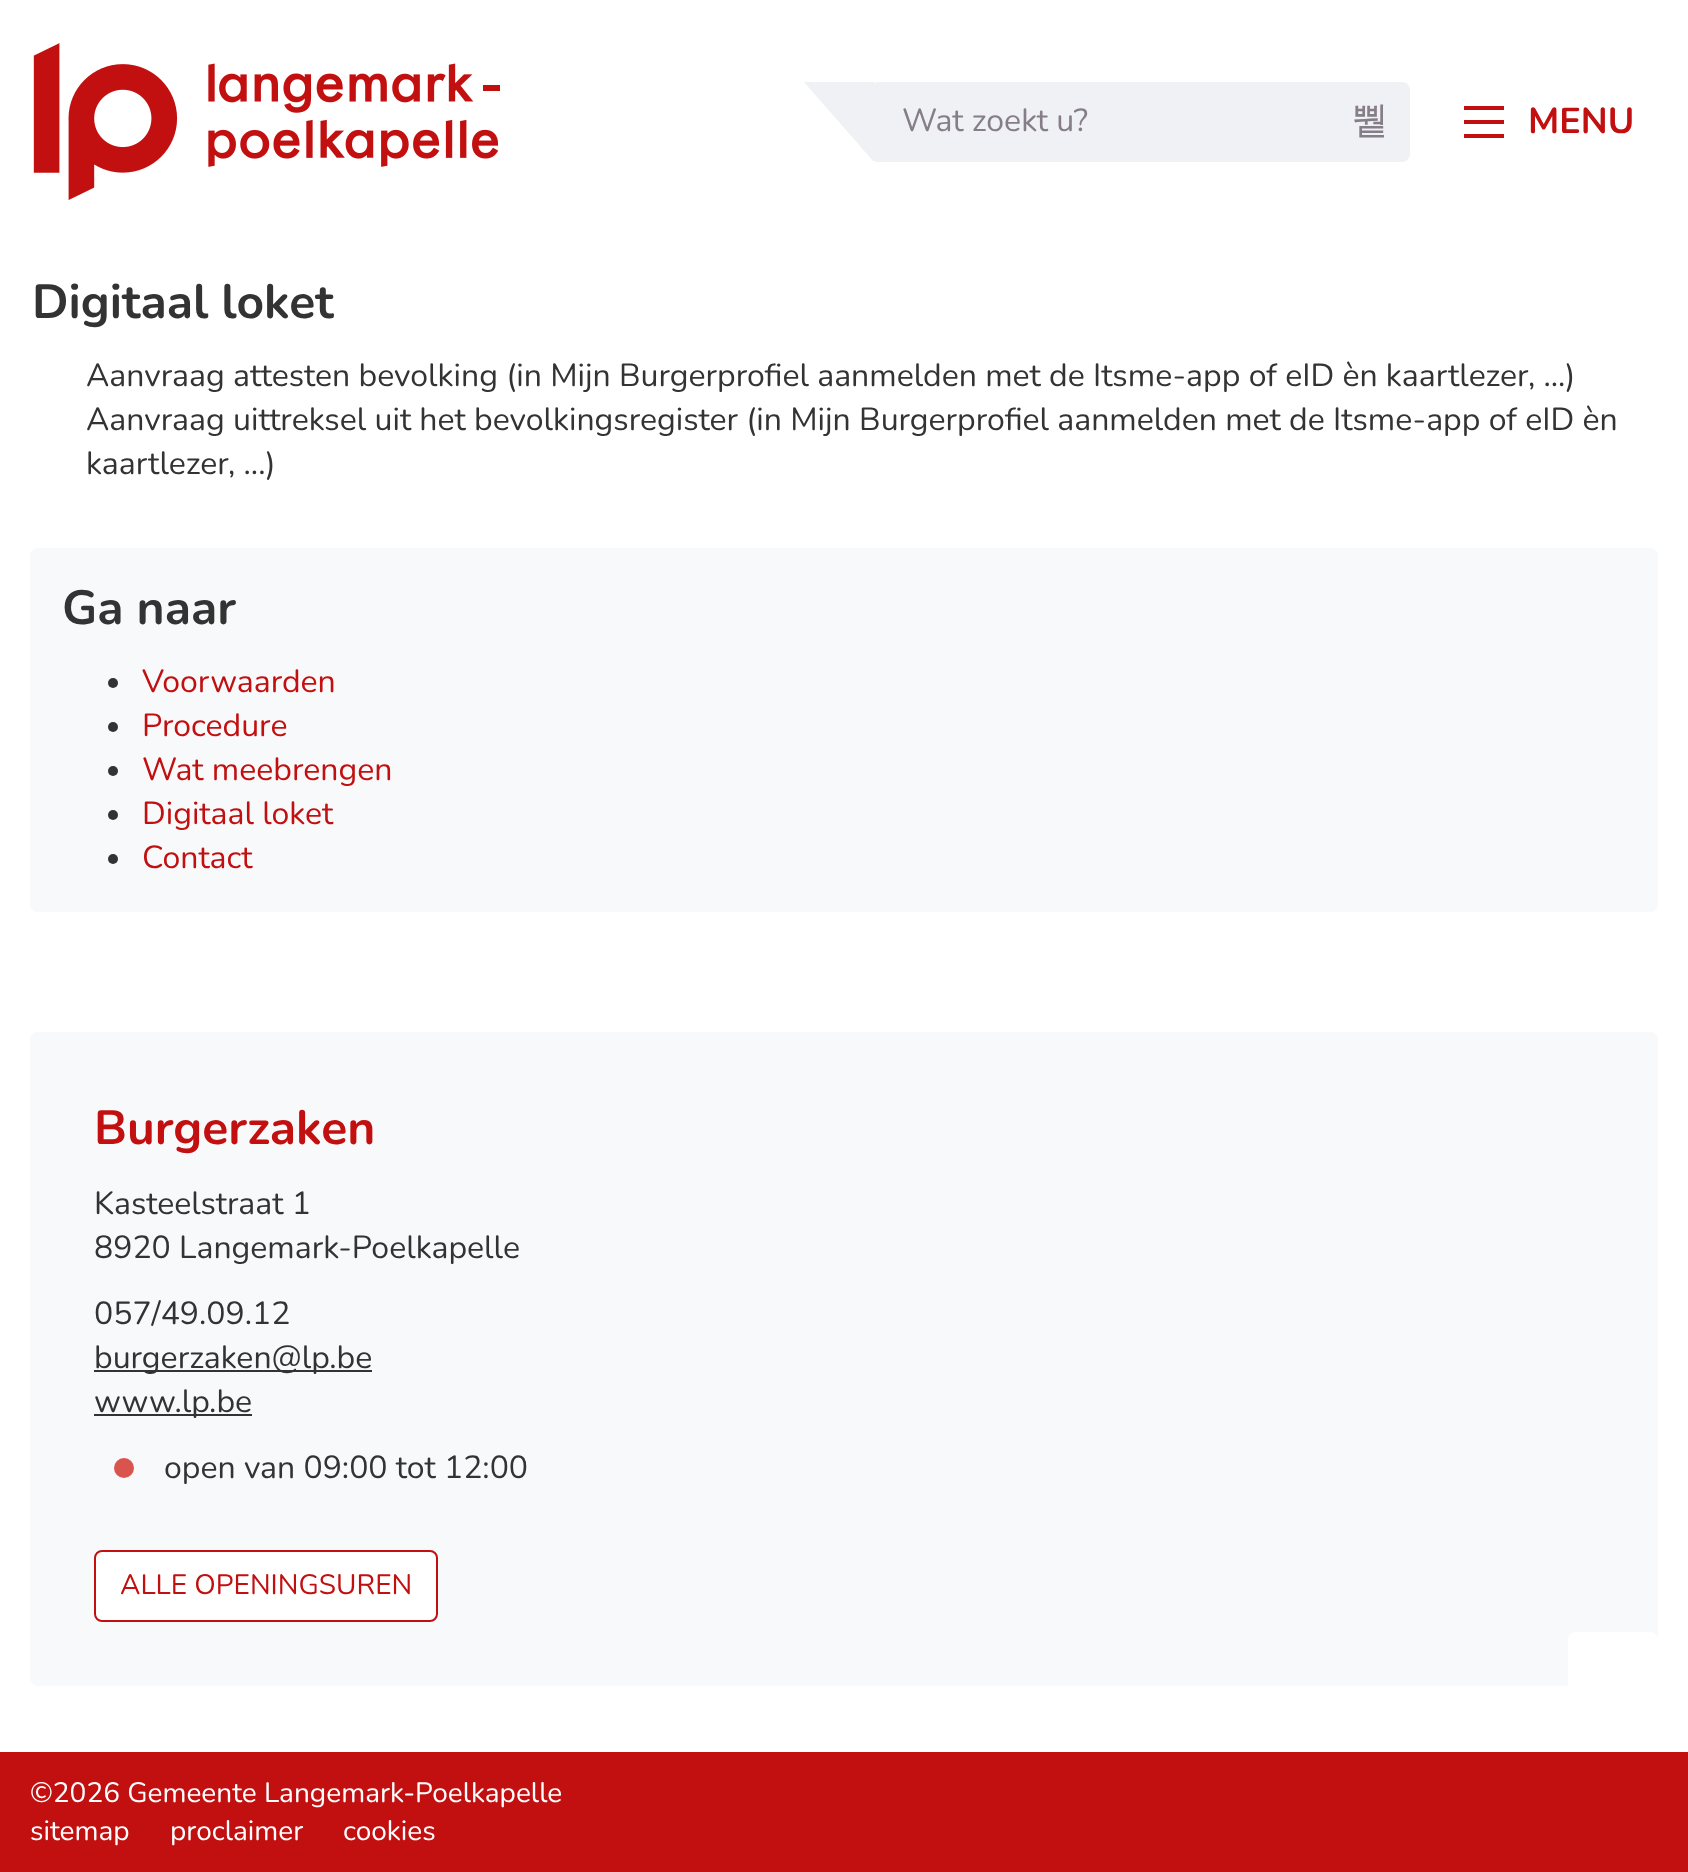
async function draw(canvas) {
  canvas.width = 1688
  canvas.height = 1872
  const ctx = canvas.getContext('2d')
  ctx.miterLimit = 4
  ctx.fontKerning = 'normal'
  async function loadImage(src) {
    const img = new Image()
    img.src = src
    await img.decode()
    return img
  }

  ctx.fillStyle = '#fff'
  ctx.fillRect(0, 0, 1688, 1872)
  ctx.drawImage(await loadImage('image0.png'), 33, 43, 467, 157)
  ctx.fillStyle = '#eff1f4'
  ctx.beginPath()
  ctx.moveTo(874, 82)
  ctx.lineTo(874, 162)
  ctx.lineTo(804, 82)
  ctx.closePath()
  ctx.fill()
  ctx.beginPath()
  ctx.roundRect(872, 84, 458, 76, [6, 0, 0, 6])
  ctx.fill()
  ctx.beginPath()
  ctx.moveTo(878, 82)
  ctx.lineTo(1330, 82)
  ctx.lineTo(1330, 162)
  ctx.lineTo(878, 162)
  ctx.bezierCurveTo(874, 162, 870, 158, 870, 154)
  ctx.lineTo(870, 90)
  ctx.bezierCurveTo(870, 86, 874, 82, 878, 82)
  ctx.closePath()
  ctx.moveTo(878, 84)
  ctx.lineTo(1330, 84)
  ctx.lineTo(1330, 160)
  ctx.lineTo(878, 160)
  ctx.bezierCurveTo(875, 160, 872, 157, 872, 154)
  ctx.lineTo(872, 90)
  ctx.bezierCurveTo(872, 87, 875, 84, 878, 84)
  ctx.closePath()
  ctx.fill('evenodd')
  ctx.font = '32px Nunito'
  ctx.fillStyle = '#857d88'
  ctx.fillText('Wat zoekt u?', 902, 131)
  ctx.fillStyle = '#eff1f4'
  ctx.beginPath()
  ctx.roundRect(1330, 82, 80, 80, [0, 8, 8, 0])
  ctx.fill()
  ctx.font = '500 38px WenQuanYi Zen Hei'
  ctx.fillStyle = '#857d88'
  ctx.fillText('쀁', 1351, 133)
  ctx.fillStyle = '#c21011'
  ctx.fillRect(1464, 120, 40, 4)
  ctx.fillRect(1464, 106, 40, 4)
  ctx.fillRect(1464, 134, 40, 4)
  ctx.font = 'bold 36px Nunito'
  ctx.fillText('MENU', 1528, 133)
  ctx.font = 'bold 48px Nunito'
  ctx.fillStyle = '#333'
  ctx.fillText('Digitaal loket', 32, 318)
  ctx.font = '32px Nunito'
  ctx.fillText('Aanvraag attesten bevolking (in Mijn Burgerprofiel aanmelden met de Itsme-app of eID èn kaartlezer, ...)', 86, 386)
  ctx.fillText('Aanvraag uittreksel uit het bevolkingsregister (in Mijn Burgerprofiel aanmelden met de Itsme-app of eID èn', 86, 430)
  ctx.fillText('kaartlezer, ...)', 86, 474)
  ctx.fillStyle = '#f8f9fa'
  ctx.beginPath()
  ctx.roundRect(31, 549, 1626, 362, 7)
  ctx.fill()
  ctx.strokeStyle = '#f8f9fa'
  ctx.lineWidth = 2
  ctx.stroke()
  ctx.font = 'bold 48px Nunito'
  ctx.fillStyle = '#333'
  ctx.fillText('Ga naar', 62, 624)
  ctx.beginPath()
  ctx.arc(113, 683, 5, 0, 2 * Math.PI)
  ctx.fill()
  ctx.font = '32px Nunito'
  ctx.fillStyle = '#c21011'
  ctx.fillText('Voorwaarden', 142, 692)
  ctx.fillStyle = '#333'
  ctx.beginPath()
  ctx.arc(113, 727, 5, 0, 2 * Math.PI)
  ctx.fill()
  ctx.fillStyle = '#c21011'
  ctx.fillText('Procedure', 142, 736)
  ctx.fillStyle = '#333'
  ctx.beginPath()
  ctx.arc(113, 771, 5, 0, 2 * Math.PI)
  ctx.fill()
  ctx.fillStyle = '#c21011'
  ctx.fillText('Wat meebrengen', 142, 780)
  ctx.fillStyle = '#333'
  ctx.beginPath()
  ctx.arc(113, 815, 5, 0, 2 * Math.PI)
  ctx.fill()
  ctx.fillStyle = '#c21011'
  ctx.fillText('Digitaal loket', 142, 824)
  ctx.fillStyle = '#333'
  ctx.beginPath()
  ctx.arc(113, 859, 5, 0, 2 * Math.PI)
  ctx.fill()
  ctx.fillStyle = '#c21011'
  ctx.fillText('Contact', 142, 868)
  ctx.fillStyle = '#f8f9fa'
  ctx.beginPath()
  ctx.roundRect(31, 1033, 1626, 652, 7)
  ctx.fill()
  ctx.stroke()
  ctx.font = 'bold 48px Nunito'
  ctx.fillStyle = '#c21011'
  ctx.fillText('Burgerzaken', 94, 1144)
  ctx.font = '32px Nunito'
  ctx.fillStyle = '#333'
  ctx.fillText('Kasteelstraat 1', 94, 1214)
  ctx.fillText('8920 Langemark-Poelkapelle', 94, 1258)
  ctx.fillText('057/49.09.12', 94, 1324)
  ctx.fillRect(94, 1370, 278, 2)
  ctx.fillText('burgerzaken@lp.be', 94, 1368)
  ctx.fillRect(94, 1414, 158, 2)
  ctx.fillText('www.lp.be', 94, 1412)
  ctx.fillStyle = '#d9534f'
  ctx.beginPath()
  ctx.arc(124, 1468, 10, 0, 2 * Math.PI)
  ctx.fill()
  ctx.fillStyle = '#333'
  ctx.fillText('open van 09:00 tot 12:00', 164, 1478)
  ctx.fillStyle = '#fff'
  ctx.beginPath()
  ctx.roundRect(95, 1551, 342, 70, 7)
  ctx.fill()
  ctx.strokeStyle = '#c21011'
  ctx.stroke()
  ctx.font = '28px Nunito'
  ctx.fillStyle = '#c21011'
  ctx.fillText('ALLE OPENINGSUREN', 120, 1594)
  ctx.fillStyle = '#fff'
  ctx.beginPath()
  ctx.roundRect(1568, 1632, 90, 90, 8)
  ctx.fill()
  ctx.fillStyle = '#c21011'
  ctx.fillRect(0, 1752, 1688, 120)
  ctx.fillStyle = '#fff'
  ctx.fillText('©2026 Gemeente Langemark-Poelkapelle', 30, 1802)
  ctx.fillText('sitemap', 30, 1840)
  ctx.fillText('proclaimer', 170, 1840)
  ctx.fillText('cookies', 343, 1840)
}

draw(document.querySelector('canvas'))
